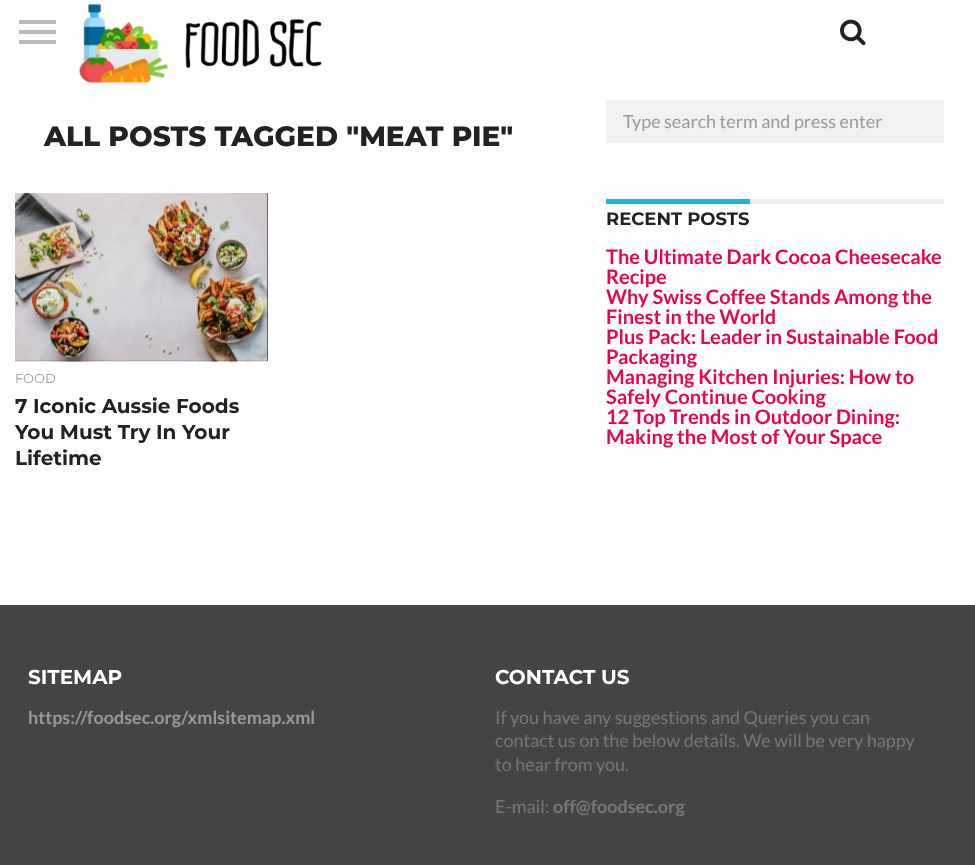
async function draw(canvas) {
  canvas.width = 975
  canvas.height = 865
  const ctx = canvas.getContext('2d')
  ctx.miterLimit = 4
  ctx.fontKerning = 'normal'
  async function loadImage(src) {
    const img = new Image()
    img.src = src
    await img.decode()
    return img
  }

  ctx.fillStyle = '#fff'
  ctx.fillRect(0, 0, 975, 865)
  ctx.fillStyle = '#bbb'
  ctx.fillRect(19, 20, 37, 4)
  ctx.fillRect(19, 30, 37, 4)
  ctx.fillRect(19, 40, 37, 4)
  ctx.drawImage(await loadImage('image0.png'), 79, 3, 243, 80)
  ctx.drawImage(await loadImage('image1.png'), 840, 19, 26, 27)
  ctx.font = '800 28px Montserrat'
  ctx.fillStyle = '#222'
  ctx.fillText('ALL POSTS TAGGED "MEAT PIE"', 44, 146)
  ctx.fillStyle = '#000'
  ctx.fillRect(15, 193, 253, 168)
  ctx.drawImage(await loadImage('image2.png'), 15, 193, 253, 169)
  ctx.font = '13px Montserrat'
  ctx.fillStyle = '#999'
  ctx.fillText('FOOD', 15, 383)
  ctx.font = 'bold 20px Montserrat'
  ctx.fillStyle = '#222'
  ctx.fillText('7 Iconic Aussie Foods', 15, 413)
  ctx.fillText('You Must Try In Your', 15, 439)
  ctx.fillText('Lifetime', 15, 465)
  ctx.fillStyle = '#f2f2f2'
  ctx.fillRect(606, 100, 338, 43)
  ctx.font = '18px Lato'
  ctx.fillStyle = '#999'
  ctx.fillText('Type search term and press enter', 623, 128)
  ctx.fillStyle = '#eee'
  ctx.fillRect(750, 199, 194, 5)
  ctx.fillStyle = '#25afe5'
  ctx.fillRect(606, 199, 144, 5)
  ctx.font = 'bold 18px Montserrat'
  ctx.fillStyle = '#222'
  ctx.fillText('RECENT POSTS', 606, 225)
  ctx.font = 'bold 20px Lato'
  ctx.fillStyle = '#eb0254'
  ctx.fillText('The Ultimate Dark Cocoa Cheesecake', 606, 264)
  ctx.fillText('Recipe', 606, 284)
  ctx.fillText('Why Swiss Coffee Stands Among the', 606, 304)
  ctx.fillText('Finest in the World', 606, 324)
  ctx.fillText('Plus Pack: Leader in Sustainable Food', 606, 344)
  ctx.fillText('Packaging', 606, 364)
  ctx.fillText('Managing Kitchen Injuries: How to', 606, 384)
  ctx.fillText('Safely Continue Cooking', 606, 404)
  ctx.fillText('12 Top Trends in Outdoor Dining:', 606, 424)
  ctx.fillText('Making the Most of Your Space', 606, 444)
  ctx.fillStyle = '#444'
  ctx.fillRect(0, 605, 975, 260)
  ctx.font = 'bold 20px Montserrat'
  ctx.fillStyle = '#fff'
  ctx.fillText('SITEMAP', 28, 684)
  ctx.font = 'bold 18px Lato'
  ctx.fillStyle = '#999'
  ctx.fillText('https://foodsec.org/xmlsitemap.xml', 28, 724)
  ctx.font = 'bold 20px Montserrat'
  ctx.fillStyle = '#fff'
  ctx.fillText('CONTACT US', 495, 684)
  ctx.font = '18px Lato'
  ctx.fillStyle = '#777'
  ctx.fillText('If you have any suggestions and Queries you can', 495, 724)
  ctx.fillText('contact us on the below details. We will be very happy', 495, 747)
  ctx.fillText('to hear from you.', 495, 771)
  ctx.fillText('E-mail:', 495, 813)
  ctx.font = 'bold 18px Lato'
  ctx.fillText('off@foodsec.org', 553, 813)
}

draw(document.querySelector('canvas'))
